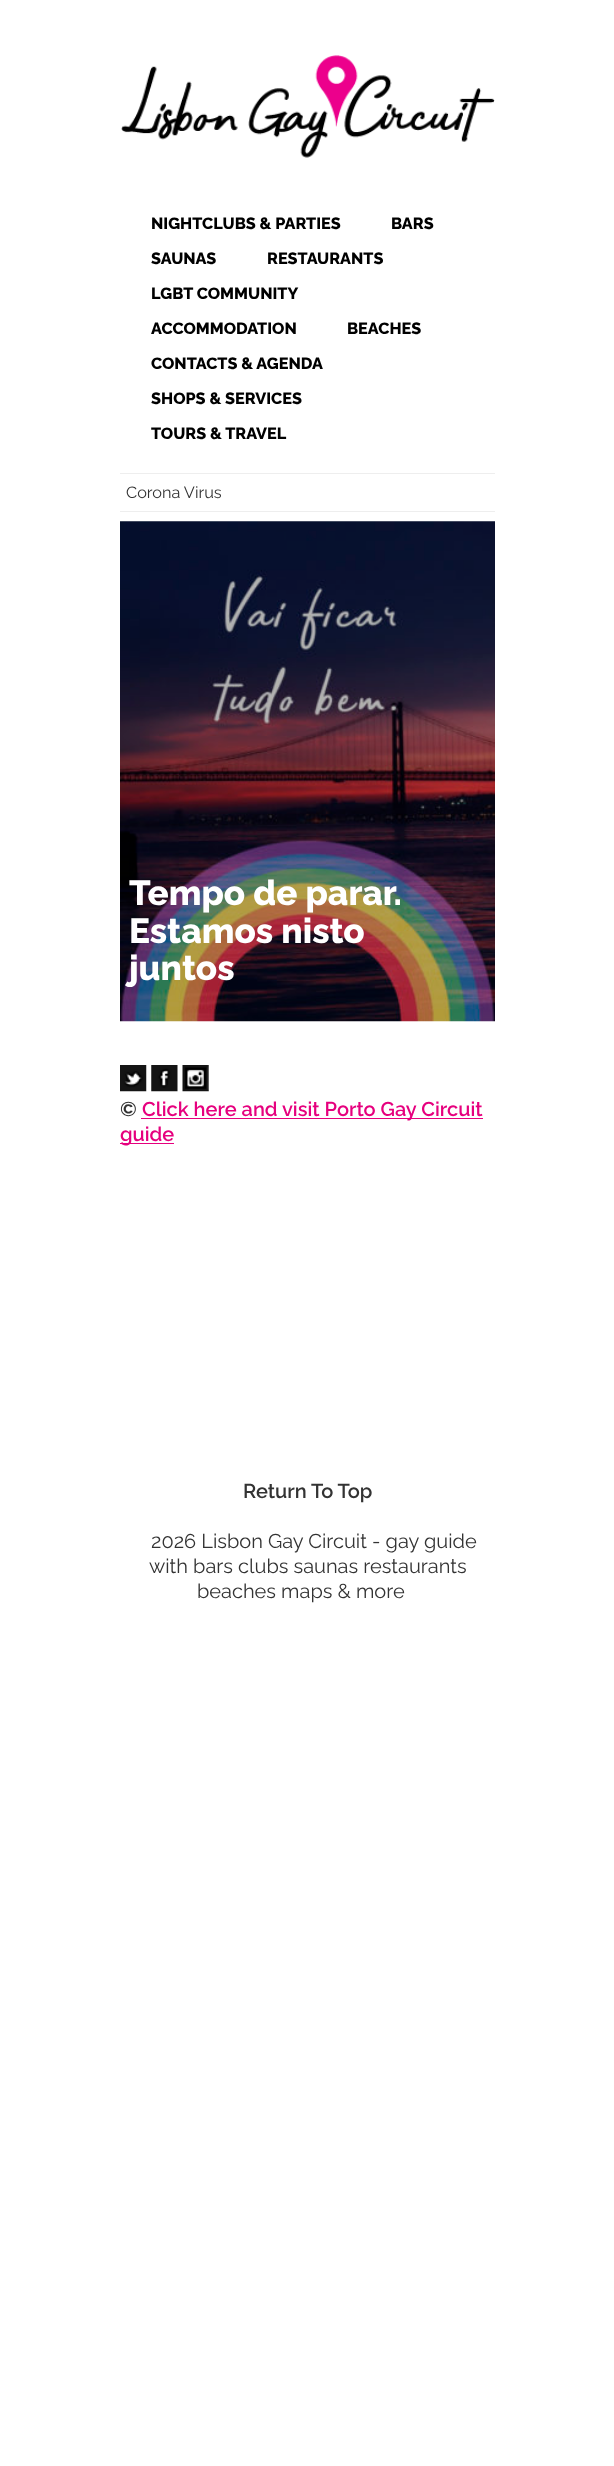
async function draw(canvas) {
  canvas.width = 614
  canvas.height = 2466
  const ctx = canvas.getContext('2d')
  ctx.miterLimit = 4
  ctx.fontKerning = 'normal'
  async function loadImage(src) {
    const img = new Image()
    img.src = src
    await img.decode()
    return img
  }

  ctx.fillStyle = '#fff'
  ctx.fillRect(0, 0, 614, 2466)
  ctx.drawImage(await loadImage('image0.png'), 121, 55, 374, 103)
  ctx.font = '800 16.25px Raleway'
  ctx.fillStyle = '#000'
  ctx.fillText('NIGHTCLUBS & PARTIES', 151, 229)
  ctx.fillText('BARS', 391, 229)
  ctx.fillText('SAUNAS', 151, 264)
  ctx.fillText('RESTAURANTS', 267, 264)
  ctx.fillText('LGBT COMMUNITY', 151, 299)
  ctx.fillText('ACCOMMODATION', 151, 334)
  ctx.fillText('BEACHES', 347, 334)
  ctx.fillText('CONTACTS & AGENDA', 151, 369)
  ctx.fillText('SHOPS & SERVICES', 151, 404)
  ctx.fillText('TOURS & TRAVEL', 151, 439)
  ctx.fillStyle = '#eee'
  ctx.fillRect(120, 473, 375, 1)
  ctx.fillRect(120, 511, 375, 1)
  ctx.font = '16.25px Raleway'
  ctx.fillStyle = '#333'
  ctx.fillText('Corona Virus', 126, 498)
  ctx.drawImage(await loadImage('image1.png'), 120, 521, 375, 501)
  ctx.font = '800 35px Raleway'
  ctx.fillStyle = '#fff'
  ctx.fillText('Tempo de parar.', 129, 905)
  ctx.fillText('Estamos nisto', 129, 943)
  ctx.fillText('juntos', 129, 980)
  ctx.drawImage(await loadImage('image2.png'), 120, 1065, 27, 27)
  ctx.drawImage(await loadImage('image3.png'), 151, 1065, 27, 27)
  ctx.drawImage(await loadImage('image4.png'), 182, 1065, 27, 27)
  ctx.font = '600 20px Raleway'
  ctx.fillStyle = '#333'
  ctx.fillText('©', 120, 1116)
  ctx.fillStyle = '#e6007e'
  ctx.fillRect(141, 1118, 342, 1)
  ctx.fillText('Click here and visit Porto Gay Circuit', 142, 1116)
  ctx.fillRect(120, 1143, 54, 1)
  ctx.fillText('guide', 120, 1141)
  ctx.fillStyle = '#333'
  ctx.fillText('Return To Top', 243, 1498)
  ctx.font = '20px Raleway'
  ctx.fillText('2026 Lisbon Gay Circuit - gay guide', 151, 1548)
  ctx.fillText('with bars clubs saunas restaurants', 149, 1573)
  ctx.fillText('beaches maps & more', 197, 1598)
}

draw(document.querySelector('canvas'))
